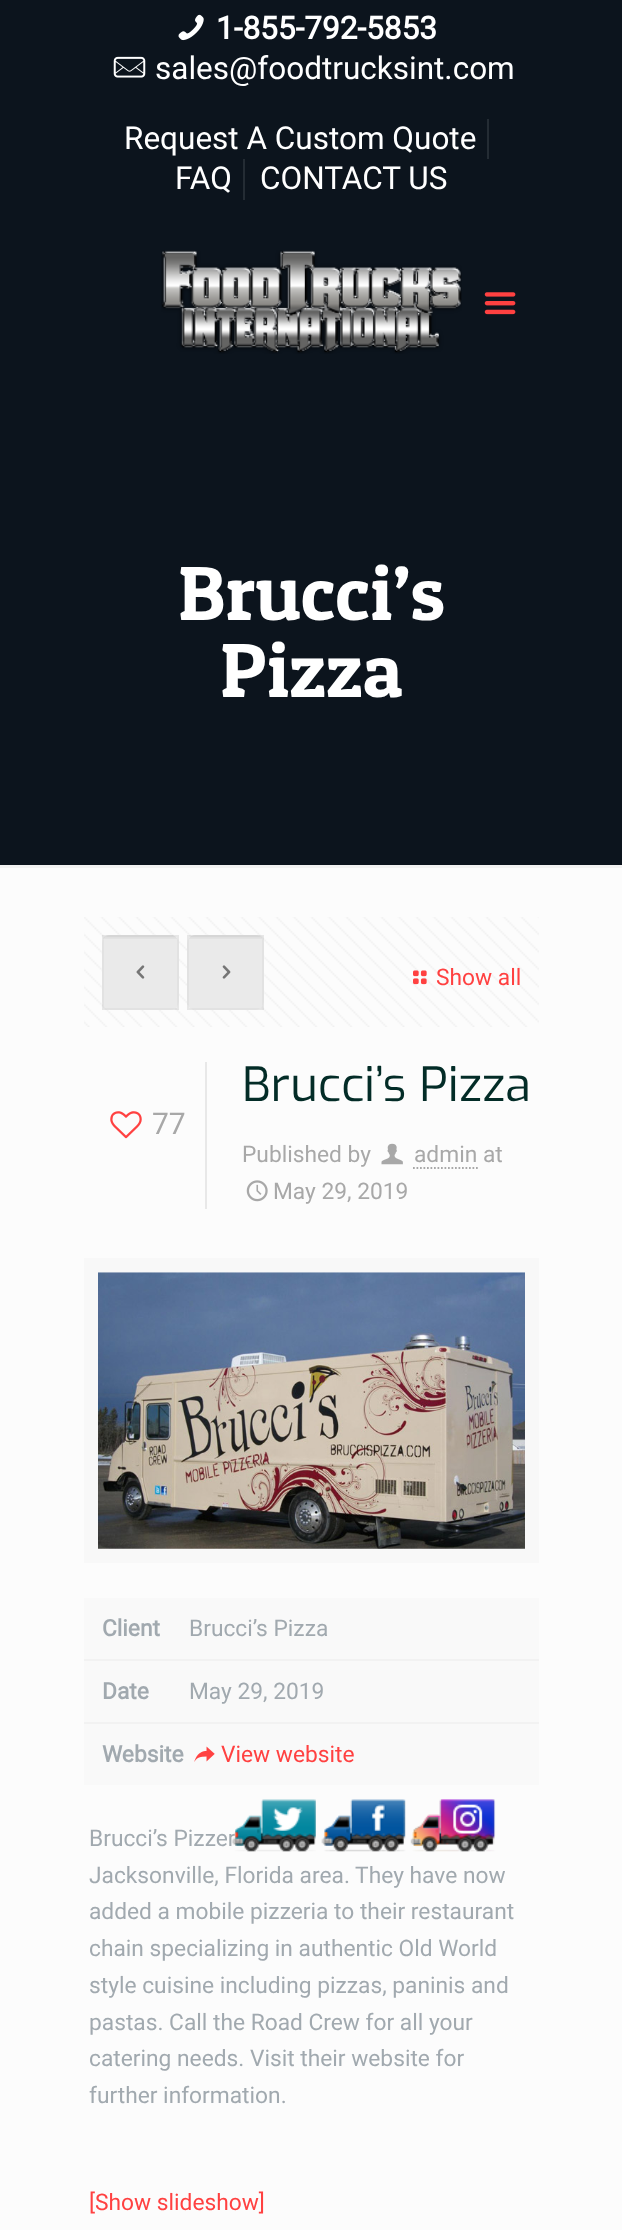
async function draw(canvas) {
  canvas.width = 622
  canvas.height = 2230
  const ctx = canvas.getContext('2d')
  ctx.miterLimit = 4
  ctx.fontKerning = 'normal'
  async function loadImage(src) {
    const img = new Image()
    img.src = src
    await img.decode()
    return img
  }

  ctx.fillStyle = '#fcfcfc'
  ctx.fillRect(0, 0, 622, 2230)
  ctx.fillStyle = '#0c141d'
  ctx.fillRect(0, 0, 622, 865)
  ctx.drawImage(await loadImage('image0.png'), 178, 14, 26, 27)
  ctx.font = 'bold 31.5px Roboto'
  ctx.fillStyle = '#fff'
  ctx.fillText('1-855-792-5853', 216, 39)
  ctx.drawImage(await loadImage('image1.png'), 113, 56, 33, 22)
  ctx.font = '31.5px Roboto'
  ctx.fillText('sales@foodtrucksint.com', 155, 79)
  ctx.fillStyle = '#242c34'
  ctx.fillRect(487, 119, 2, 40)
  ctx.fillStyle = '#fff'
  ctx.fillText('Request A Custom Quote', 124, 149)
  ctx.fillStyle = '#242c34'
  ctx.fillRect(243, 159, 2, 41)
  ctx.fillStyle = '#fff'
  ctx.fillText('FAQ', 175, 189)
  ctx.fillText('CONTACT US', 260, 189)
  ctx.drawImage(await loadImage('image2.png'), 161, 250, 301, 104)
  ctx.drawImage(await loadImage('image3.png'), 484, 292, 32, 23)
  ctx.font = '77px Patua One'
  ctx.fillText('Brucci’s', 178, 620)
  ctx.fillText('Pizza', 220, 697)
  ctx.fillStyle = '#f2f2f2'
  ctx.fillRect(0, 865, 622, 3)
  ctx.drawImage(await loadImage('image4.png'), 84, 917, 455, 110)
  ctx.fillStyle = '#f7f7f7'
  ctx.beginPath()
  ctx.roundRect(102, 935, 77, 75, 9)
  ctx.fill()
  ctx.drawImage(await loadImage('image5.png'), 103, 935, 74, 4)
  ctx.strokeStyle = '#00000008'
  ctx.lineWidth = 2
  ctx.strokeRect(103, 936, 75, 73)
  ctx.fillStyle = '#0000000d'
  ctx.fillRect(102, 935, 77, 75)
  ctx.drawImage(await loadImage('image6.png'), 136, 965, 9, 14)
  ctx.fillStyle = '#f7f7f7'
  ctx.beginPath()
  ctx.roundRect(187, 935, 77, 75, 9)
  ctx.fill()
  ctx.drawImage(await loadImage('image7.png'), 189, 935, 73, 4)
  ctx.strokeRect(188, 936, 75, 73)
  ctx.fillStyle = '#0000000d'
  ctx.fillRect(187, 935, 77, 75)
  ctx.drawImage(await loadImage('image8.png'), 222, 965, 9, 14)
  ctx.drawImage(await loadImage('image9.png'), 413, 970, 14, 15)
  ctx.font = '22.75px Roboto'
  ctx.fillStyle = '#ff4141'
  ctx.fillText('Show all', 436, 985)
  ctx.drawImage(await loadImage('image10.png'), 110, 1111, 32, 28)
  ctx.font = '30px Roboto'
  ctx.fillStyle = '#a8a8a8'
  ctx.fillText('77', 152, 1134)
  ctx.fillStyle = '#e8e8e8'
  ctx.fillRect(205, 1062, 2, 147)
  ctx.font = '47.25px Exo'
  ctx.fillStyle = '#032c27'
  ctx.fillText('Brucci’s Pizza', 242, 1101)
  ctx.font = '22.75px Roboto'
  ctx.fillStyle = '#a8a8a8'
  ctx.fillText('Published by', 242, 1162)
  ctx.drawImage(await loadImage('image11.png'), 381, 1143, 22, 22)
  ctx.fillText('admin at', 414, 1162)
  ctx.beginPath()
  ctx.moveTo(413, 1168)
  ctx.lineTo(478, 1168)
  ctx.strokeStyle = '#a8a8a8'
  ctx.lineWidth = 1.8
  ctx.setLineDash([1.75, 1.75])
  ctx.stroke()
  ctx.drawImage(await loadImage('image12.png'), 246, 1180, 22, 22)
  ctx.fillText('May 29, 2019', 273, 1199)
  ctx.strokeStyle = '#f8f8f8'
  ctx.lineWidth = 14
  ctx.setLineDash([])
  ctx.strokeRect(91, 1265, 441, 291)
  ctx.drawImage(await loadImage('image13.png'), 98, 1272, 427, 277)
  ctx.fillStyle = '#f9f9f9'
  ctx.fillRect(84, 1598, 455, 61)
  ctx.fillStyle = '#f2f2f2'
  ctx.fillRect(84, 1659, 455, 2)
  ctx.font = 'bold 22.75px Roboto'
  ctx.fillStyle = '#a1a9af'
  ctx.fillText('Client', 102, 1636)
  ctx.font = '22.75px Roboto'
  ctx.fillText('Brucci’s Pizza', 189, 1636)
  ctx.fillStyle = '#f9f9f9'
  ctx.fillRect(84, 1661, 455, 61)
  ctx.fillStyle = '#f2f2f2'
  ctx.fillRect(84, 1722, 455, 2)
  ctx.font = 'bold 22.75px Roboto'
  ctx.fillStyle = '#a1a9af'
  ctx.fillText('Date', 102, 1699)
  ctx.font = '22.75px Roboto'
  ctx.fillText('May 29, 2019', 189, 1699)
  ctx.fillStyle = '#f9f9f9'
  ctx.fillRect(84, 1724, 455, 61)
  ctx.font = 'bold 22.75px Roboto'
  ctx.fillStyle = '#a1a9af'
  ctx.fillText('Website', 102, 1762)
  ctx.drawImage(await loadImage('image14.png'), 194, 1746, 21, 16)
  ctx.font = '22.75px Roboto'
  ctx.fillStyle = '#ff4141'
  ctx.fillText('View website', 221, 1762)
  ctx.fillStyle = '#a1a9af'
  ctx.fillText('Brucci’s Pizzer', 89, 1846)
  ctx.fillText('Jacksonville, Florida area. They have now', 89, 1883)
  ctx.fillText('added a mobile pizzeria to their restaurant', 89, 1919)
  ctx.fillText('chain specializing in authentic Old World', 89, 1956)
  ctx.fillText('style cuisine including pizzas, paninis and', 89, 1993)
  ctx.fillText('pastas. Call the Road Crew for all your', 89, 2030)
  ctx.fillText('catering needs. Visit their website for', 89, 2066)
  ctx.fillText('further information.', 89, 2103)
  ctx.fillStyle = '#ff4141'
  ctx.fillText('[Show slideshow]', 89, 2210)
  ctx.drawImage(await loadImage('image15.png'), 232, 1799, 84, 53)
  ctx.drawImage(await loadImage('image16.png'), 321, 1799, 85, 53)
  ctx.drawImage(await loadImage('image17.png'), 410, 1799, 86, 53)
}

draw(document.querySelector('canvas'))
